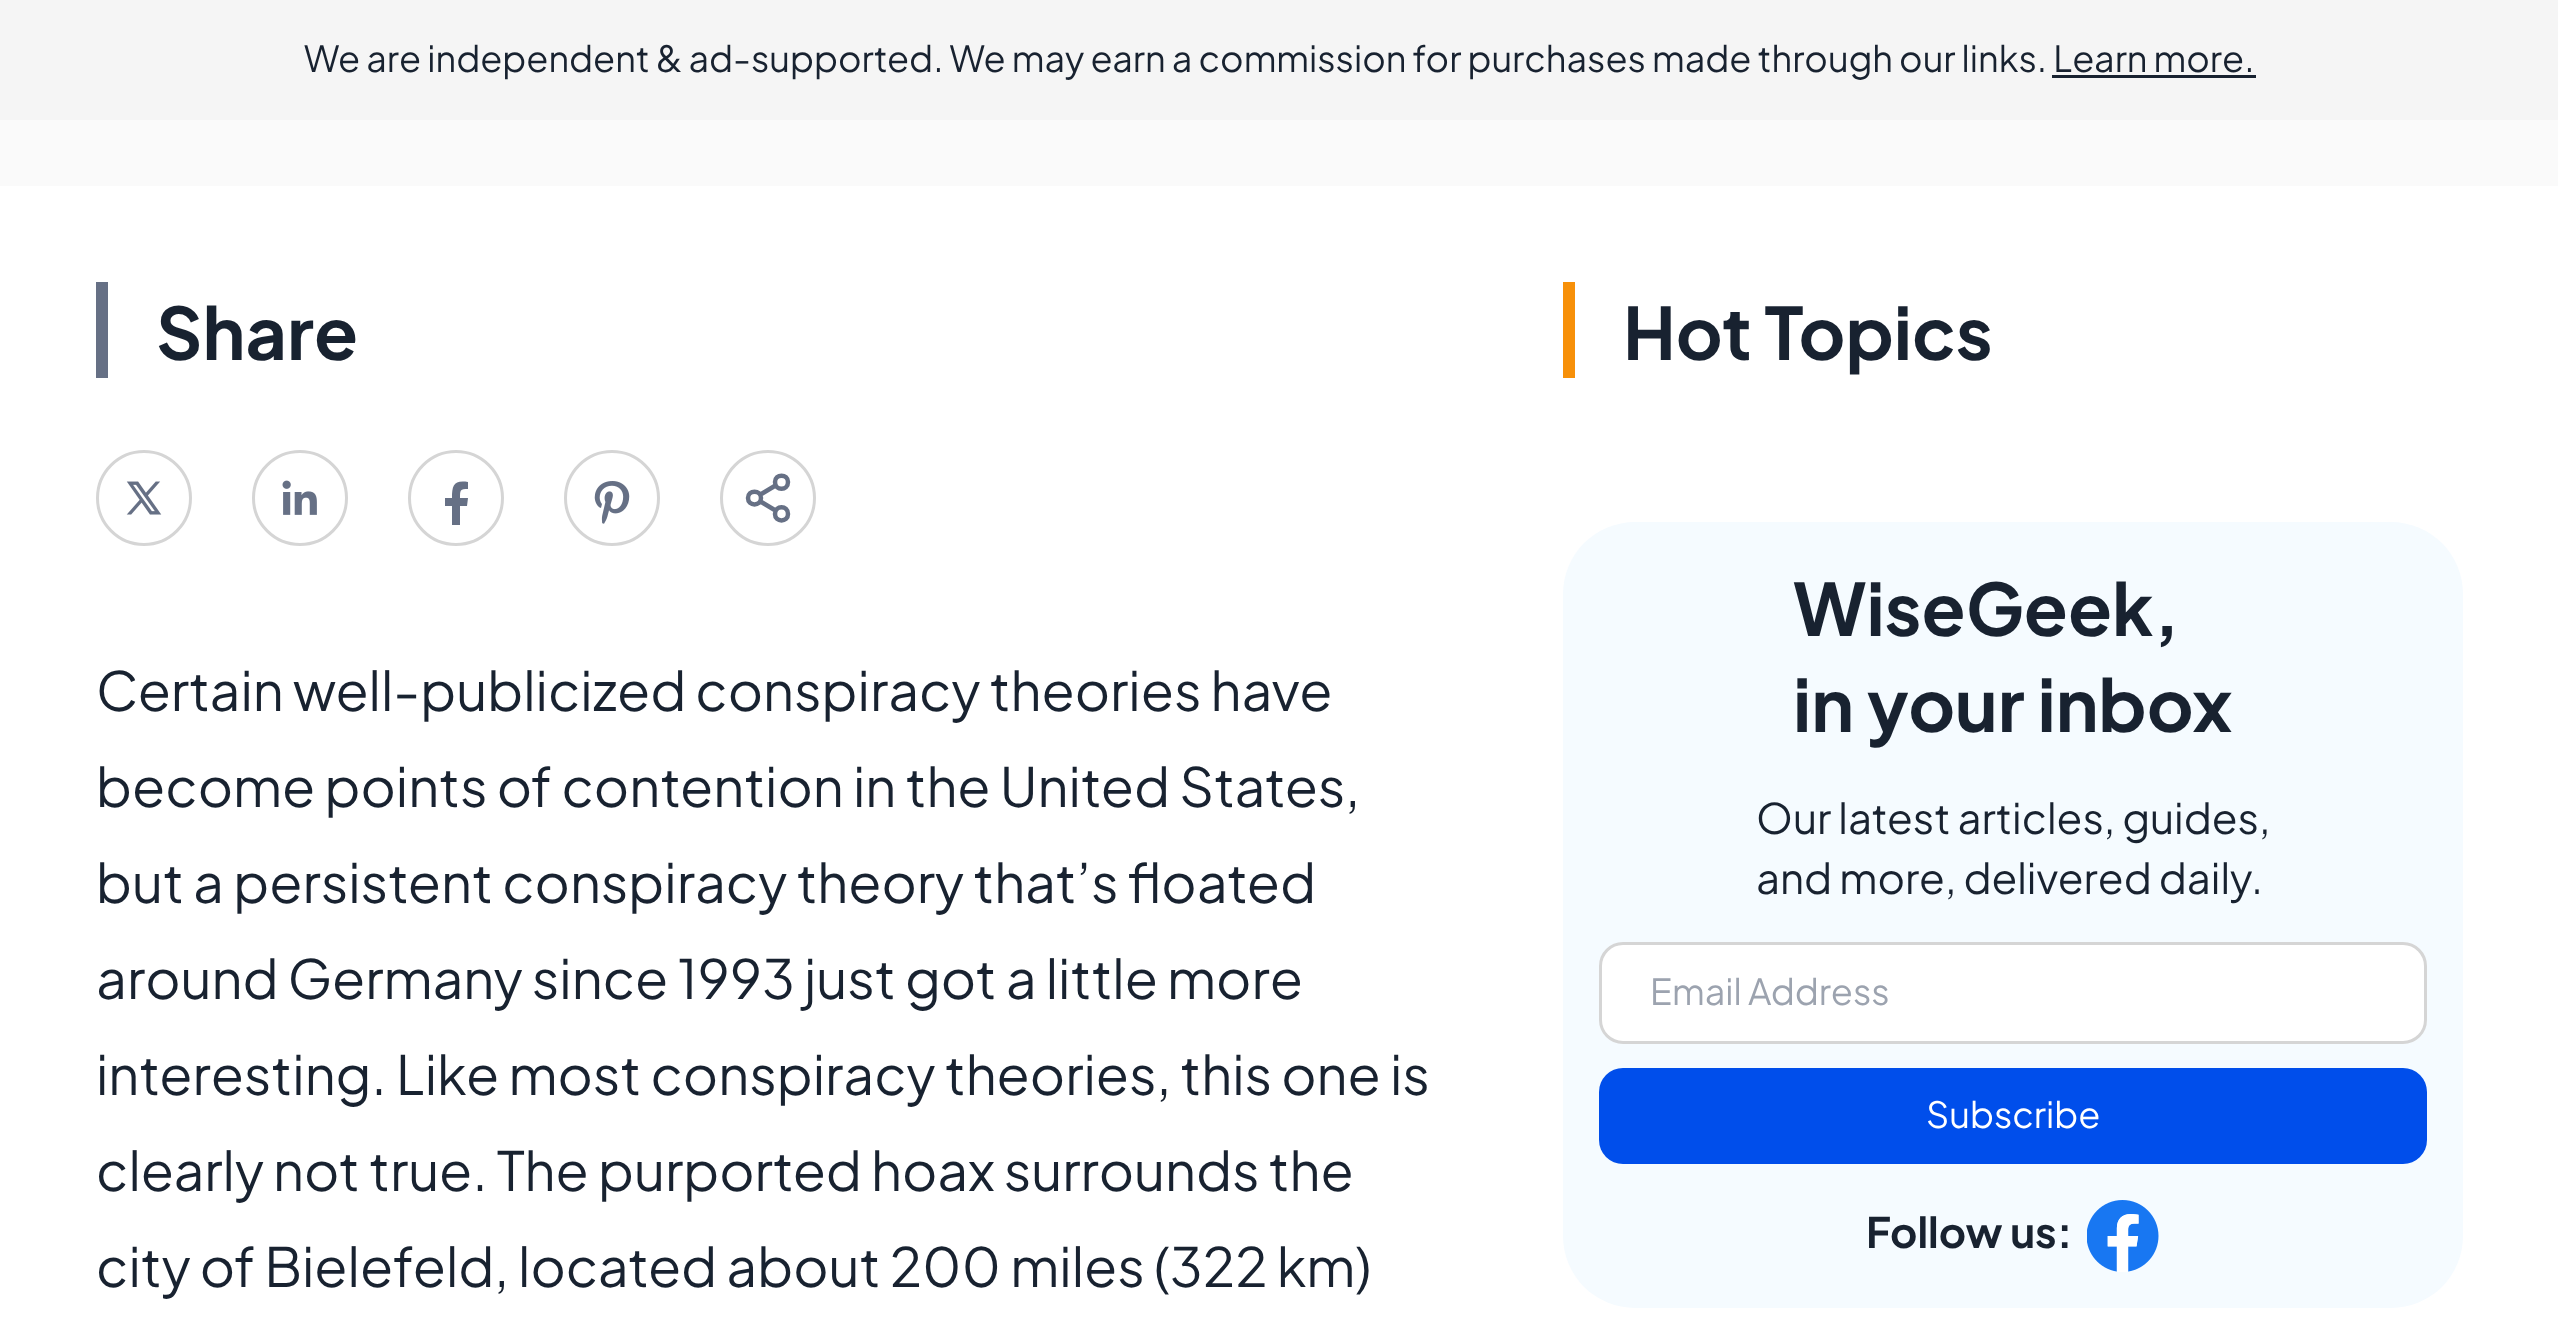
async function draw(canvas) {
  canvas.width = 2558
  canvas.height = 1330
  const ctx = canvas.getContext('2d')
  ctx.miterLimit = 4
  ctx.fontKerning = 'normal'
  async function loadImage(src) {
    const img = new Image()
    img.src = src
    await img.decode()
    return img
  }

  ctx.fillStyle = '#fff'
  ctx.fillRect(0, 0, 2558, 1330)
  ctx.fillStyle = '#f5f5f5'
  ctx.fillRect(0, 0, 2558, 120)
  ctx.font = '36px Plus Jakarta Sans'
  ctx.fillStyle = '#182230'
  ctx.fillText('We are independent & ad-supported. We may earn a commission for purchases made through our links. Learn more.', 304, 72)
  ctx.fillRect(2052, 75, 204, 3)
  ctx.fillStyle = '#fafafa'
  ctx.fillRect(0, 120, 2558, 66)
  ctx.fillStyle = '#667085'
  ctx.fillRect(96, 282, 12, 96)
  ctx.font = 'bold 72px Plus Jakarta Sans'
  ctx.fillStyle = '#182230'
  ctx.fillText('Share', 156, 360)
  ctx.beginPath()
  ctx.arc(144, 498, 46.5, 0, 2 * Math.PI)
  ctx.strokeStyle = '#d5d5d5'
  ctx.lineWidth = 3
  ctx.stroke()
  ctx.drawImage(await loadImage('image0.png'), 126, 481, 36, 34)
  ctx.beginPath()
  ctx.arc(300, 498, 46.5, 0, 2 * Math.PI)
  ctx.stroke()
  ctx.drawImage(await loadImage('image1.png'), 282, 480, 35, 35)
  ctx.beginPath()
  ctx.arc(456, 498, 46.5, 0, 2 * Math.PI)
  ctx.stroke()
  ctx.fillStyle = '#667085'
  ctx.beginPath()
  ctx.moveTo(452, 506)
  ctx.lineTo(452, 525)
  ctx.lineTo(460, 525)
  ctx.lineTo(460, 506)
  ctx.lineTo(467, 506)
  ctx.lineTo(468, 498)
  ctx.lineTo(460, 498)
  ctx.bezierCurveTo(460, 490, 460, 489, 468, 489)
  ctx.lineTo(468, 482)
  ctx.bezierCurveTo(454, 480, 452, 485, 452, 498)
  ctx.lineTo(445, 498)
  ctx.lineTo(445, 506)
  ctx.closePath()
  ctx.fill()
  ctx.beginPath()
  ctx.arc(612, 498, 46.5, 0, 2 * Math.PI)
  ctx.stroke()
  ctx.drawImage(await loadImage('image2.png'), 594, 481, 36, 43)
  ctx.beginPath()
  ctx.arc(768, 498, 46.5, 0, 2 * Math.PI)
  ctx.stroke()
  ctx.beginPath()
  ctx.moveTo(760.5, 501.5)
  ctx.lineTo(775.5, 510.5)
  ctx.moveTo(775.5, 485.5)
  ctx.lineTo(760.5, 494.5)
  ctx.moveTo(788, 482)
  ctx.bezierCurveTo(788, 491, 775, 491, 775, 482)
  ctx.bezierCurveTo(775, 473.5, 788, 473.5, 788, 482)
  ctx.closePath()
  ctx.moveTo(761, 498)
  ctx.bezierCurveTo(761, 506.5, 748, 506.5, 748, 498)
  ctx.bezierCurveTo(748, 489.5, 761, 489.5, 761, 498)
  ctx.closePath()
  ctx.moveTo(788, 514)
  ctx.bezierCurveTo(788, 522.5, 775, 522.5, 775, 514)
  ctx.bezierCurveTo(775, 505, 788, 505, 788, 514)
  ctx.closePath()
  ctx.strokeStyle = '#667085'
  ctx.lineWidth = 4.5
  ctx.lineCap = 'round'
  ctx.lineJoin = 'round'
  ctx.stroke()
  ctx.font = '54px Plus Jakarta Sans'
  ctx.fillStyle = '#182230'
  ctx.fillText('Certain well-publicized conspiracy theories have', 96, 711)
  ctx.fillText('become points of contention in the United States,', 96, 807)
  ctx.fillText('but a persistent conspiracy theory that’s floated', 96, 903)
  ctx.fillText('around Germany since 1993 just got a little more', 96, 999)
  ctx.fillText('interesting. Like most conspiracy theories, this one is', 96, 1095)
  ctx.fillText('clearly not true. The purported hoax surrounds the', 96, 1191)
  ctx.fillText('city of Bielefeld, located about 200 miles (322 km)', 96, 1287)
  ctx.fillStyle = '#f79009'
  ctx.fillRect(1563, 282, 12, 96)
  ctx.font = 'bold 72px Plus Jakarta Sans'
  ctx.fillStyle = '#182230'
  ctx.fillText('Hot Topics', 1623, 360)
  ctx.fillStyle = '#f5fbff'
  ctx.beginPath()
  ctx.roundRect(1563, 522, 900, 786, 72)
  ctx.fill()
  ctx.fillStyle = '#182230'
  ctx.fillText('WiseGeek,', 1793, 636)
  ctx.fillText('in your inbox', 1793, 732)
  ctx.font = '42px Plus Jakarta Sans'
  ctx.fillText('Our latest articles, guides,', 1756, 834)
  ctx.fillText('and more, delivered daily.', 1756, 894)
  ctx.fillStyle = '#fff'
  ctx.beginPath()
  ctx.roundRect(1600.5, 943.5, 825, 99, 22.5)
  ctx.fill()
  ctx.strokeStyle = '#d5d5d5'
  ctx.lineWidth = 3
  ctx.lineJoin = 'miter'
  ctx.stroke()
  ctx.font = '36px Plus Jakarta Sans'
  ctx.fillStyle = '#9ca3af'
  ctx.fillText('Email Address', 1650, 1005)
  ctx.fillStyle = '#004eeb'
  ctx.beginPath()
  ctx.roundRect(1599, 1068, 828, 96, 24)
  ctx.fill()
  ctx.fillStyle = '#fff'
  ctx.fillText('Subscribe', 1926, 1128)
  ctx.font = 'bold 42px Plus Jakarta Sans'
  ctx.fillStyle = '#182230'
  ctx.fillText('Follow us:', 1866, 1248)
  ctx.drawImage(await loadImage('image3.png'), 2087, 1200, 72, 72)
}

draw(document.querySelector('canvas'))
